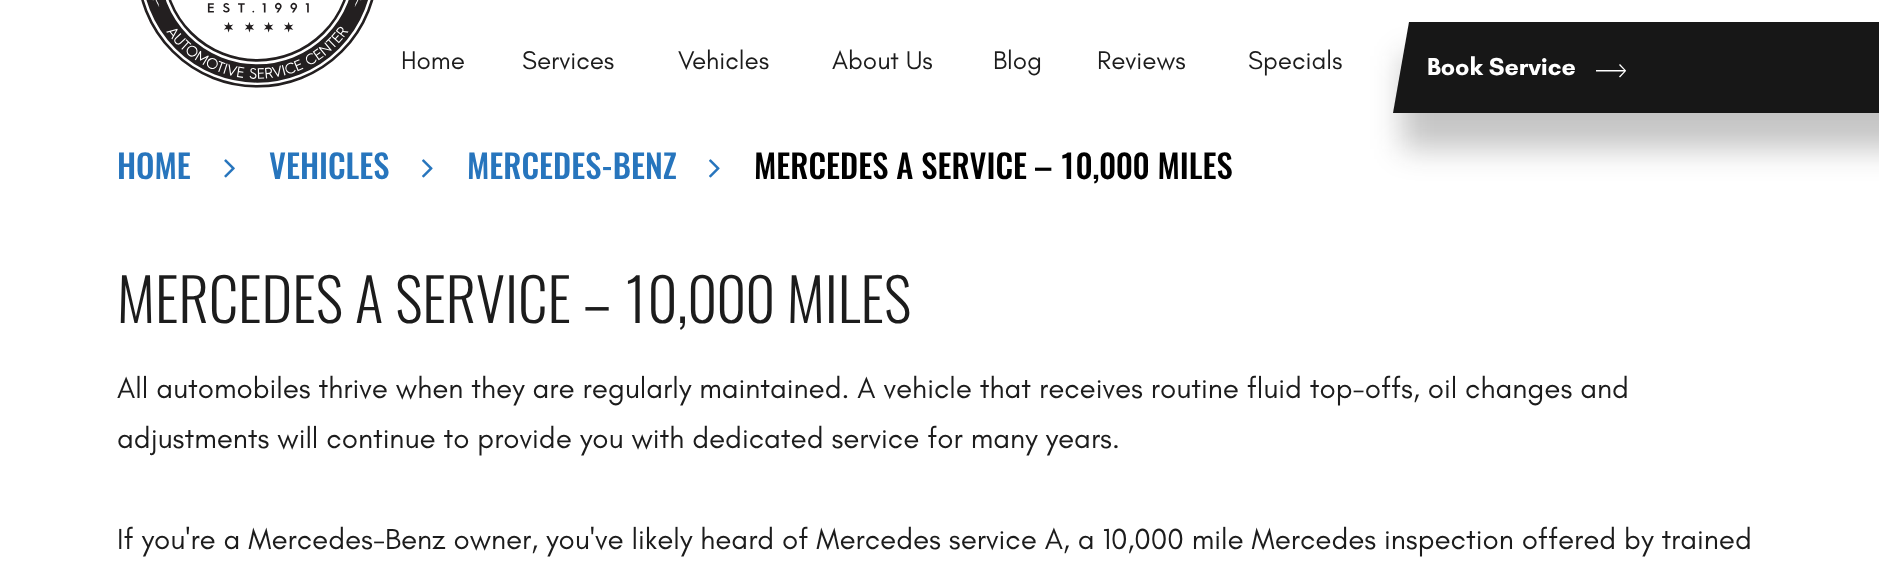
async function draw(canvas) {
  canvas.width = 1879
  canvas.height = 574
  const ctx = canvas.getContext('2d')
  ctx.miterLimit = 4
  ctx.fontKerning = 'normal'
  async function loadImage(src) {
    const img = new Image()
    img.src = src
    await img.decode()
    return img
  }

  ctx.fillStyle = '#fff'
  ctx.fillRect(0, 0, 1879, 574)
  ctx.drawImage(await loadImage('image0.png'), 141, 0, 233, 88)
  ctx.font = '26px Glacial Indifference'
  ctx.fillStyle = '#1c1c1c'
  ctx.fillText('Home', 401, 69)
  ctx.fillText('Services', 522, 69)
  ctx.fillText('Vehicles', 678, 69)
  ctx.fillText('About Us', 832, 69)
  ctx.fillText('Blog', 993, 69)
  ctx.fillText('Reviews', 1097, 69)
  ctx.fillText('Specials', 1248, 69)
  ctx.fillStyle = '#17171740'
  ctx.filter = 'blur(15px)'
  ctx.beginPath()
  ctx.rect(1402, 56, 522, 93)
  ctx.fill()
  ctx.filter = 'none'
  ctx.fillStyle = '#171717'
  ctx.beginPath()
  ctx.moveTo(1409, 22)
  ctx.lineTo(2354, 22)
  ctx.lineTo(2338, 113)
  ctx.lineTo(1393, 113)
  ctx.closePath()
  ctx.fill()
  ctx.font = 'bold 25px Glacial Indifference'
  ctx.fillStyle = '#fff'
  ctx.fillText('Book Service', 1427, 75)
  ctx.beginPath()
  ctx.moveTo(1619, 76.5)
  ctx.lineTo(1620, 77.5)
  ctx.lineTo(1626, 71)
  ctx.lineTo(1626, 70.5)
  ctx.lineTo(1620, 64)
  ctx.lineTo(1619, 65)
  ctx.lineTo(1624, 70)
  ctx.lineTo(1596, 70)
  ctx.lineTo(1596, 71.5)
  ctx.lineTo(1624, 71.5)
  ctx.closePath()
  ctx.fill()
  ctx.font = '500 32.75px Oswald'
  ctx.fillStyle = '#2775bd'
  ctx.fillText('HOME', 117, 179)
  ctx.drawImage(await loadImage('image1.png'), 224, 159, 11, 19)
  ctx.fillText('VEHICLES', 269, 179)
  ctx.drawImage(await loadImage('image2.png'), 422, 159, 11, 19)
  ctx.fillText('MERCEDES-BENZ', 467, 179)
  ctx.drawImage(await loadImage('image2.png'), 709, 159, 11, 19)
  ctx.fillStyle = '#000'
  ctx.fillText('MERCEDES A SERVICE – 10,000 MILES', 754, 179)
  ctx.font = '300 59px Oswald'
  ctx.fillStyle = '#1c1c1c'
  ctx.fillText('MERCEDES A SERVICE – 10,000 MILES', 117, 323)
  ctx.font = '29.53px Glacial Indifference'
  ctx.fillText('All automobiles thrive when they are regularly maintained. A vehicle that receives routine fluid top-offs, oil changes and', 117, 398)
  ctx.fillText('adjustments will continue to provide you with dedicated service for many years.', 117, 448)
  ctx.fillText('If you\'re a Mercedes-Benz owner, you\'ve likely heard of Mercedes service A, a 10,000 mile Mercedes inspection offered by trained', 117, 549)
}

draw(document.querySelector('canvas'))
